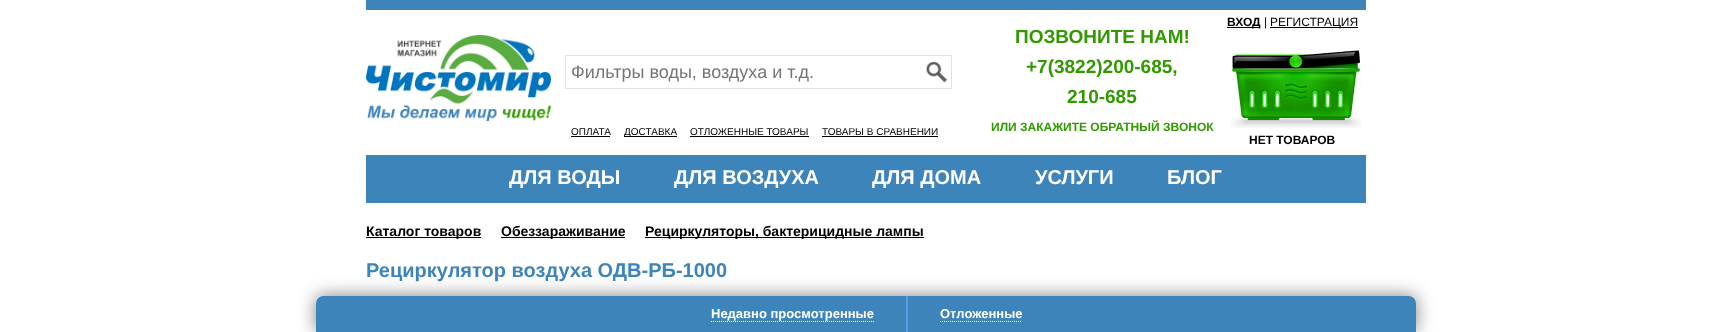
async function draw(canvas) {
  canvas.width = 1731
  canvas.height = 332
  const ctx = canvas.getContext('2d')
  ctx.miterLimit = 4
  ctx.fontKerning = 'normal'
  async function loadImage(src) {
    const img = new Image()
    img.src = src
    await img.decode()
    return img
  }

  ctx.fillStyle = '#fff'
  ctx.fillRect(0, 0, 1731, 332)
  ctx.fillStyle = '#3d84ba'
  ctx.fillRect(366, 0, 1000, 10)
  ctx.drawImage(await loadImage('image0.png'), 366, 35, 185, 86)
  ctx.strokeStyle = '#e2e2e2'
  ctx.strokeRect(565.5, 55.5, 386, 33)
  ctx.font = '18px Liberation Sans'
  ctx.fillStyle = '#757575'
  ctx.fillText('Фильтры воды, воздуха и т.д.', 571, 78)
  ctx.drawImage(await loadImage('image1.png'), 926, 62, 21, 21)
  ctx.font = '10px Liberation Sans'
  ctx.fillStyle = '#000'
  ctx.fillText('ОПЛАТА', 571, 135)
  ctx.fillRect(571, 136, 39, 1)
  ctx.fillRect(624, 136, 53, 1)
  ctx.fillText('ДОСТАВКА', 624, 135)
  ctx.fillText('ОТЛОЖЕННЫЕ ТОВАРЫ', 690, 135)
  ctx.fillRect(690, 136, 119, 1)
  ctx.fillText('ТОВАРЫ В СРАВНЕНИИ', 822, 135)
  ctx.fillRect(822, 136, 116, 1)
  ctx.font = 'bold 19px Liberation Sans'
  ctx.fillStyle = '#390'
  ctx.fillText('ПОЗВОНИТЕ НАМ!', 1015, 43)
  ctx.fillText('+7(3822)200-685,', 1026, 73)
  ctx.fillText('210-685', 1067, 103)
  ctx.font = 'bold 12px Liberation Sans'
  ctx.fillText('ИЛИ ЗАКАЖИТЕ ОБРАТНЫЙ ЗВОНОК', 991, 131)
  ctx.fillStyle = '#000'
  ctx.fillRect(1227, 27, 33, 1)
  ctx.fillText('ВХОД', 1227, 26)
  ctx.font = '12px Liberation Sans'
  ctx.fillText('|', 1264, 26)
  ctx.fillRect(1270, 27, 88, 1)
  ctx.fillText('РЕГИСТРАЦИЯ', 1270, 26)
  ctx.drawImage(await loadImage('image2.png'), 1231, 50, 130, 78)
  ctx.font = 'bold 12px Liberation Sans'
  ctx.fillText('НЕТ ТОВАРОВ', 1249, 144)
  ctx.fillStyle = '#3d84ba'
  ctx.fillRect(366, 155, 1000, 48)
  ctx.font = 'bold 20px Liberation Sans'
  ctx.fillStyle = '#fff'
  ctx.fillText('ДЛЯ ВОДЫ', 509, 184)
  ctx.fillText('ДЛЯ ВОЗДУХА', 674, 184)
  ctx.fillText('ДЛЯ ДОМА', 872, 184)
  ctx.fillText('УСЛУГИ', 1035, 184)
  ctx.fillText('БЛОГ', 1167, 184)
  ctx.fillStyle = '#000'
  ctx.fillRect(366, 237, 115, 1)
  ctx.font = 'bold 14px Liberation Sans'
  ctx.fillText('Каталог товаров', 366, 236)
  ctx.fillRect(501, 237, 124, 1)
  ctx.fillText('Обеззараживание', 501, 236)
  ctx.fillRect(645, 237, 279, 1)
  ctx.fillText('Рециркуляторы, бактерицидные лампы', 645, 236)
  ctx.font = 'bold 20px Liberation Sans'
  ctx.fillStyle = '#3d84ba'
  ctx.fillText('Рециркулятор воздуха ОДВ-РБ-1000', 366, 277)
  ctx.beginPath()
  ctx.roundRect(316, 296, 1100, 36, [7, 7, 0, 0])
  ctx.fill()
  ctx.save()
  ctx.beginPath()
  ctx.moveTo(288, 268)
  ctx.lineTo(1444, 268)
  ctx.lineTo(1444, 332)
  ctx.lineTo(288, 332)
  ctx.closePath()
  ctx.moveTo(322, 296)
  ctx.lineTo(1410, 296)
  ctx.bezierCurveTo(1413.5, 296, 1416, 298.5, 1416, 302)
  ctx.lineTo(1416, 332)
  ctx.lineTo(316, 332)
  ctx.lineTo(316, 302)
  ctx.bezierCurveTo(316, 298.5, 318.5, 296, 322, 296)
  ctx.closePath()
  ctx.clip('evenodd')
  ctx.fillStyle = '#00000080'
  ctx.filter = 'blur(9px)'
  ctx.beginPath()
  ctx.roundRect(316, 296, 1100, 36, 6)
  ctx.fill()
  ctx.filter = 'none'
  ctx.restore()
  ctx.font = 'bold 13px Liberation Sans'
  ctx.fillStyle = '#fff'
  ctx.fillText('Недавно просмотренные', 711, 318)
  ctx.beginPath()
  ctx.moveTo(711, 321.5)
  ctx.lineTo(874, 321.5)
  ctx.strokeStyle = '#fff'
  ctx.setLineDash([1, 1])
  ctx.stroke()
  ctx.fillStyle = '#6098eb'
  ctx.fillRect(906, 296, 2, 36)
  ctx.fillStyle = '#fff'
  ctx.fillText('Отложенные', 940, 318)
  ctx.beginPath()
  ctx.moveTo(940, 321.5)
  ctx.lineTo(1022, 321.5)
  ctx.stroke()
}

draw(document.querySelector('canvas'))
